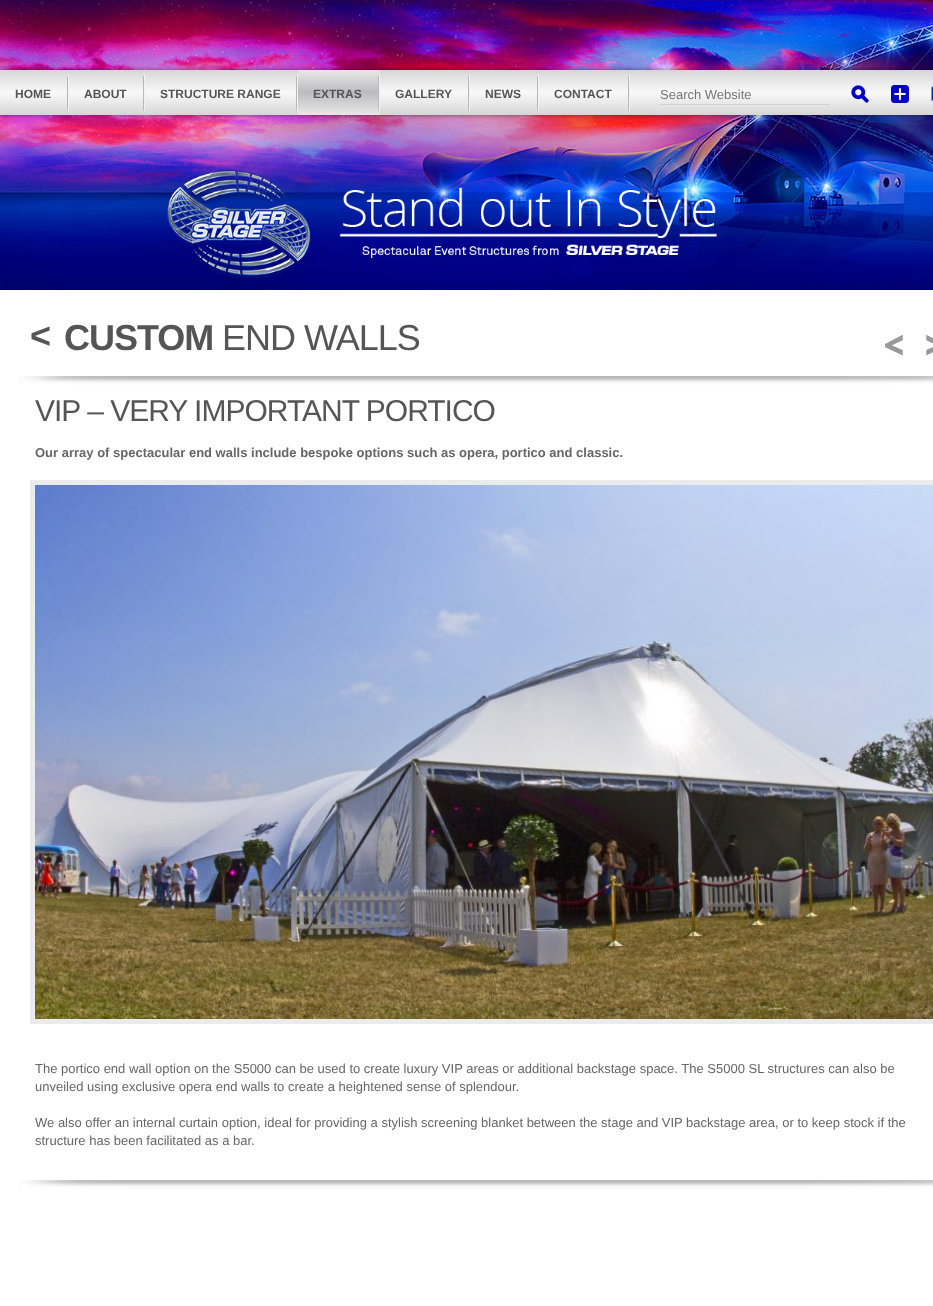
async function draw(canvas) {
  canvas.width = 933
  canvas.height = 1306
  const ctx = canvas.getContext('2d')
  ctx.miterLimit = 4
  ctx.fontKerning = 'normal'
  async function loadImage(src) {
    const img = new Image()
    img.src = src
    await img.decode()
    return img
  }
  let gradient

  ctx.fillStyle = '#fff'
  ctx.fillRect(0, 0, 933, 1306)
  ctx.drawImage(await loadImage('image0.png'), 0, 0, 933, 290)
  ctx.fillStyle = '#00000080'
  ctx.filter = 'blur(2.5px)'
  ctx.beginPath()
  ctx.rect(0, 70, 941, 45)
  ctx.fill()
  ctx.filter = 'none'
  gradient = ctx.createLinearGradient(490, 70, 490, 115)
  gradient.addColorStop(0, '#d6d6d6')
  gradient.addColorStop(0.5, '#f9f9f9')
  gradient.addColorStop(1, '#d6d6d6')
  ctx.fillStyle = gradient
  ctx.fillRect(0, 70, 933, 45)
  ctx.drawImage(await loadImage('image1.png'), 67, 75, 2, 36)
  ctx.font = 'bold 12px Liberation Sans'
  ctx.fillStyle = '#555'
  ctx.fillText('HOME', 15, 98)
  ctx.drawImage(await loadImage('image1.png'), 143, 75, 2, 36)
  ctx.fillText('ABOUT', 84, 98)
  ctx.drawImage(await loadImage('image1.png'), 296, 75, 2, 36)
  ctx.fillText('STRUCTURE RANGE', 160, 98)
  gradient = ctx.createLinearGradient(339, 70, 339, 115)
  gradient.addColorStop(0, '#e8e8e8')
  gradient.addColorStop(0.5, '#bcbcbf')
  gradient.addColorStop(1, '#e8e8e8')
  ctx.fillStyle = gradient
  ctx.fillRect(298, 70, 82, 45)
  ctx.drawImage(await loadImage('image1.png'), 378, 75, 2, 36)
  ctx.fillStyle = '#555'
  ctx.fillText('EXTRAS', 313, 98)
  ctx.drawImage(await loadImage('image1.png'), 468, 75, 2, 36)
  ctx.fillText('GALLERY', 395, 98)
  ctx.drawImage(await loadImage('image1.png'), 537, 75, 2, 36)
  ctx.fillText('NEWS', 485, 98)
  ctx.drawImage(await loadImage('image1.png'), 628, 75, 2, 36)
  ctx.fillText('CONTACT', 554, 98)
  ctx.fillStyle = '#d1d1d1'
  ctx.fillRect(660, 104, 170, 1)
  ctx.font = '13px Liberation Sans'
  ctx.fillStyle = '#757575'
  ctx.fillText('Search Website', 660, 99)
  ctx.drawImage(await loadImage('image2.png'), 851, 85, 18, 18)
  ctx.drawImage(await loadImage('image3.png'), 891, 85, 18, 18)
  ctx.drawImage(await loadImage('image4.png'), 931, 86, 2, 15)
  ctx.fillStyle = '#00000033'
  ctx.filter = 'blur(10px)'
  ctx.beginPath()
  ctx.rect(0, 290, 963, 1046)
  ctx.fill()
  ctx.filter = 'none'
  ctx.drawImage(await loadImage('image5.png'), 167, 170, 144, 109)
  ctx.drawImage(await loadImage('image6.png'), 339, 187, 378, 71)
  ctx.fillStyle = '#fff'
  ctx.fillRect(0, 290, 933, 1016)
  ctx.drawImage(await loadImage('image7.png'), 20, 376, 913, 9)
  ctx.letterSpacing = '-1px'
  ctx.font = 'bold 36px Liberation Sans'
  ctx.fillStyle = '#555'
  ctx.fillText('<', 30, 348)
  ctx.fillText('CUSTOM', 64, 350)
  ctx.font = '36px Liberation Sans'
  ctx.fillText('END WALLS', 222, 350)
  ctx.drawImage(await loadImage('image8.png'), 885, 334, 18, 22)
  ctx.drawImage(await loadImage('image9.png'), 926, 334, 7, 22)
  ctx.drawImage(await loadImage('image7.png'), 20, 1180, 913, 9)
  ctx.font = '30px Liberation Sans'
  ctx.fillText('VIP – VERY IMPORTANT PORTICO', 35, 421)
  ctx.letterSpacing = '0px'
  ctx.font = 'bold 13px Liberation Sans'
  ctx.fillStyle = '#666'
  ctx.fillText('Our array of spectacular end walls include bespoke options such as opera, portico and classic.', 35, 457)
  ctx.fillStyle = '#ebebeb'
  ctx.fillRect(30, 480, 903, 544)
  ctx.drawImage(await loadImage('image10.png'), 35, 485, 898, 534)
  ctx.font = '13px Liberation Sans'
  ctx.fillStyle = '#666'
  ctx.fillText('The portico end wall option on the S5000 can be used to create luxury VIP areas or additional backstage space. The S5000 SL structures can also be', 35, 1073)
  ctx.fillText('unveiled using exclusive opera end walls to create a heightened sense of splendour.', 35, 1091)
  ctx.fillText('We also offer an internal curtain option, ideal for providing a stylish screening blanket between the stage and VIP backstage area, or to keep stock if the', 35, 1127)
  ctx.fillText('structure has been facilitated as a bar.', 35, 1145)
}

draw(document.querySelector('canvas'))
